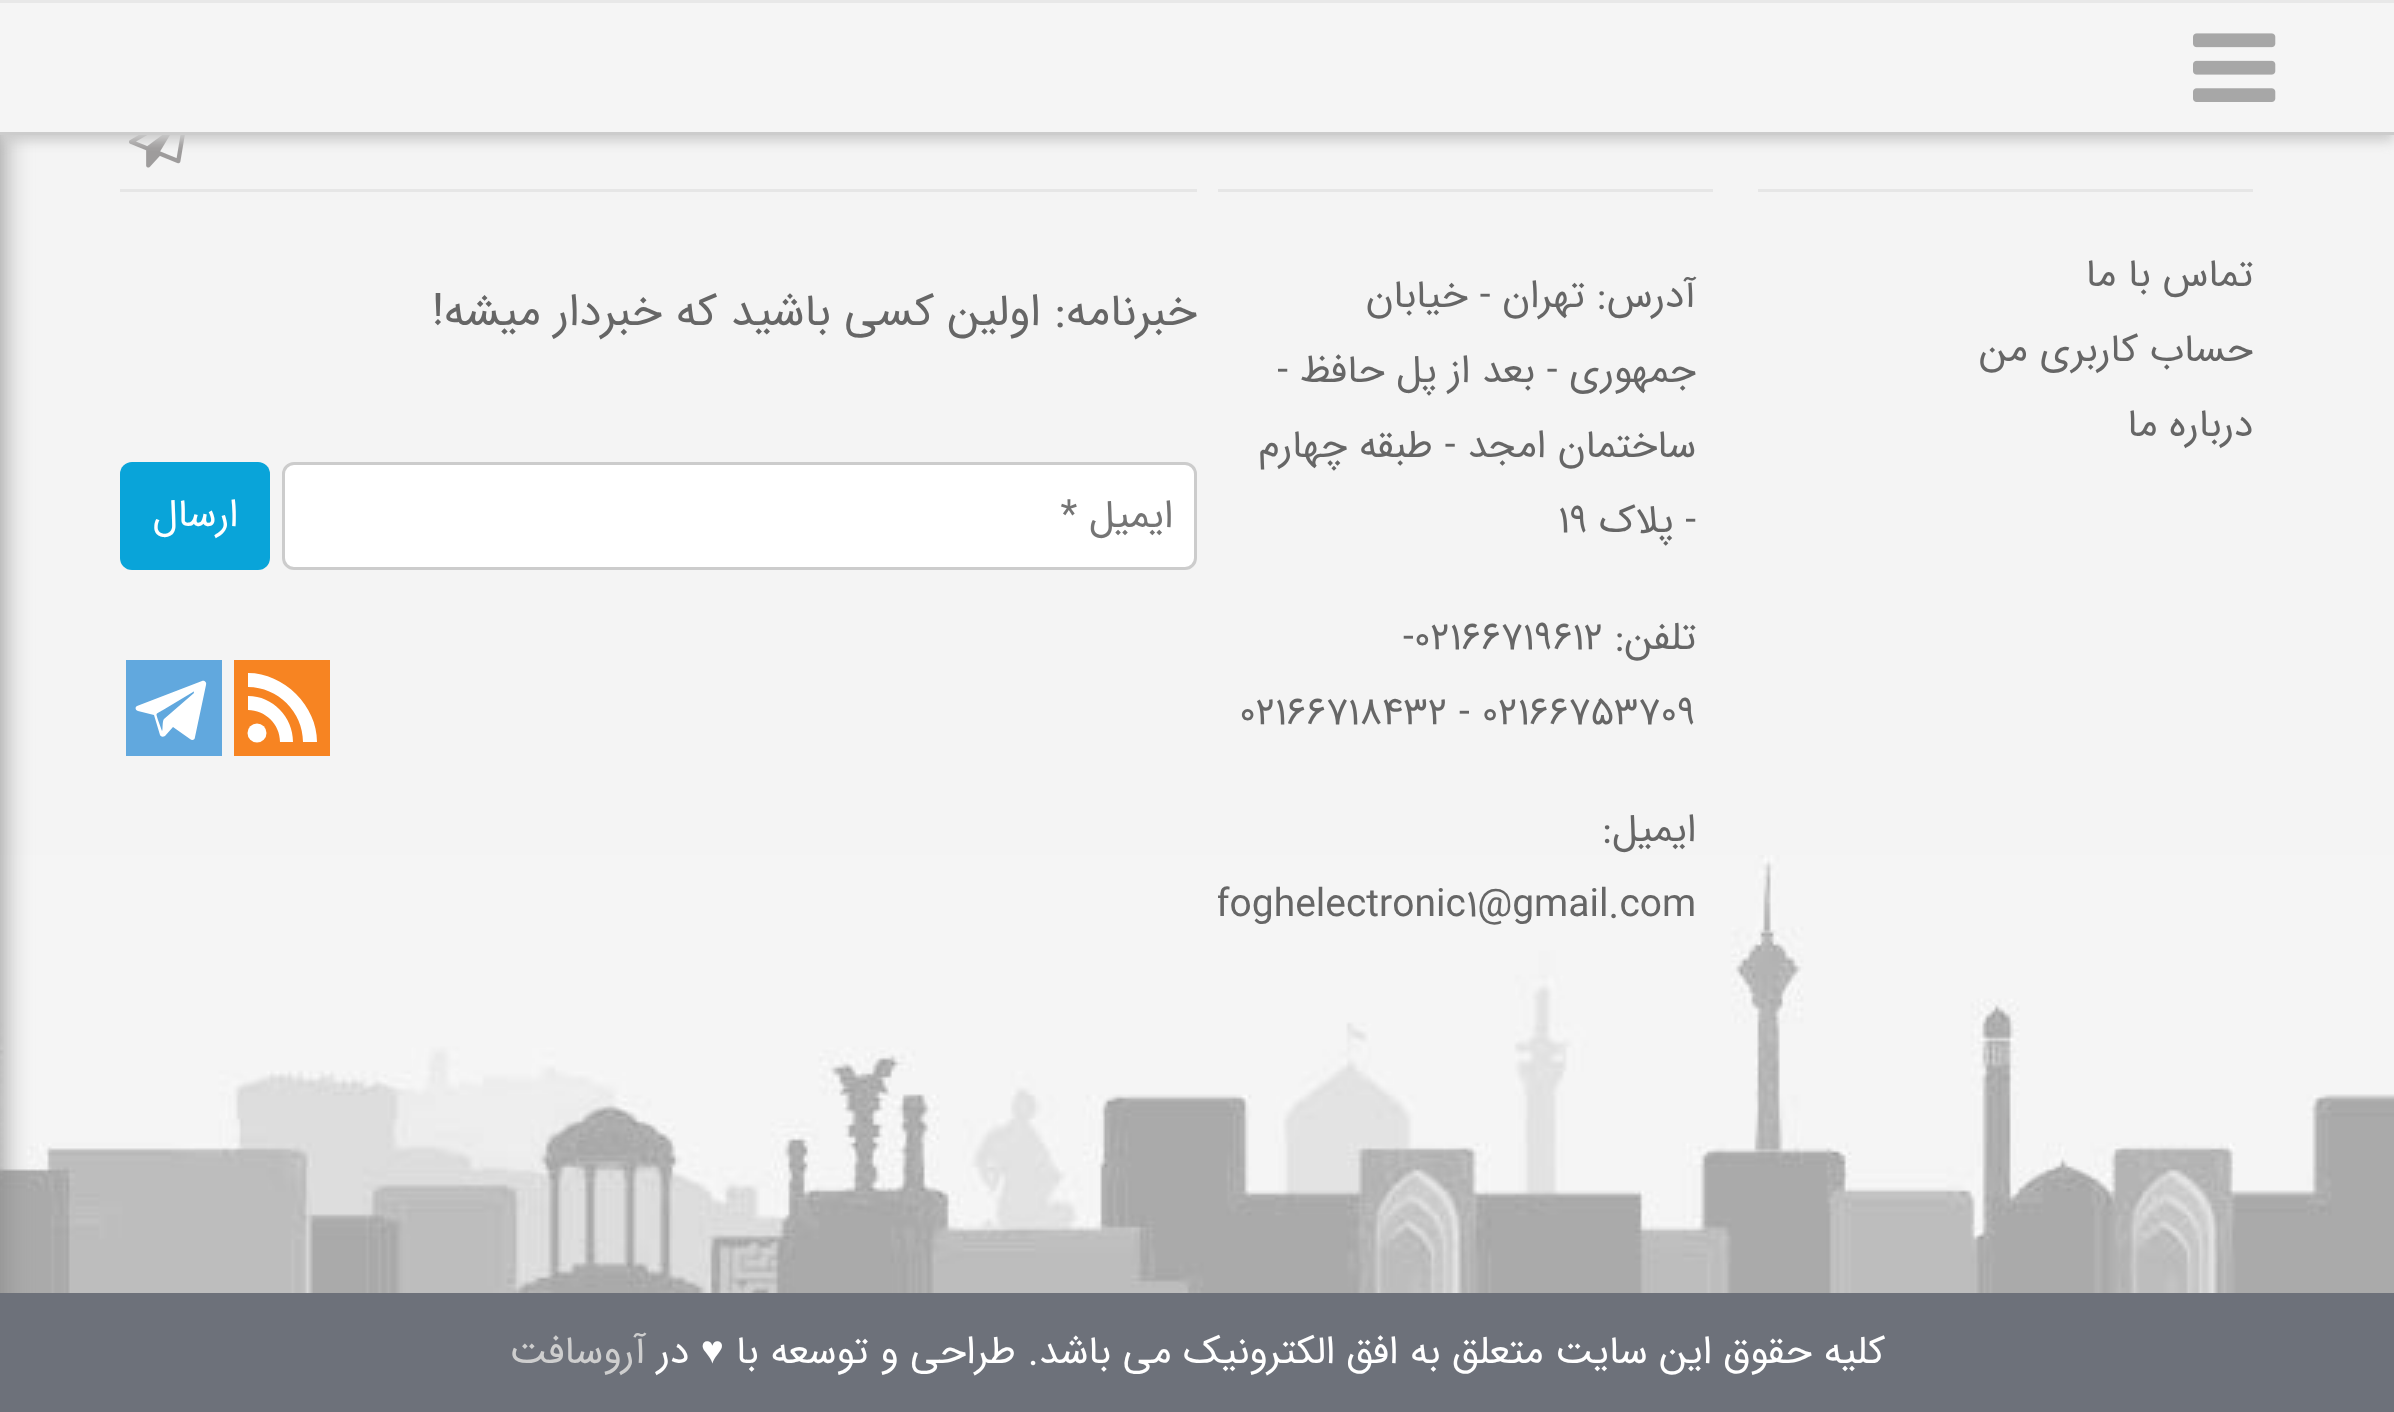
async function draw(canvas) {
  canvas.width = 2394
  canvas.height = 1412
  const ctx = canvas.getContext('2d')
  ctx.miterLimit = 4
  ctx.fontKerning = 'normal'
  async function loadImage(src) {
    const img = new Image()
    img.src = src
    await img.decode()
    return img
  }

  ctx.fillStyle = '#f4f4f4'
  ctx.fillRect(0, 0, 2394, 1412)
  ctx.drawImage(await loadImage('image1.png'), 0, 855, 2394, 438)
  ctx.fillStyle = '#888'
  ctx.filter = 'blur(15px)'
  ctx.beginPath()
  ctx.rect(-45, 6, 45, 1401)
  ctx.fill()
  ctx.filter = 'none'
  ctx.drawImage(await loadImage('image2.png'), 129, 135, 56, 33)
  ctx.fillStyle = '#ccc'
  ctx.filter = 'blur(6px)'
  ctx.beginPath()
  ctx.rect(0, 6, 2394, 135)
  ctx.fill()
  ctx.filter = 'none'
  ctx.fillStyle = '#f5f5f5'
  ctx.fillRect(0, 3, 2394, 129)
  ctx.fillStyle = '#e8e8e8'
  ctx.fillRect(0, 0, 2394, 3)
  ctx.fillStyle = '#ccc'
  ctx.fillRect(0, 132, 2394, 3)
  ctx.drawImage(await loadImage('image0.png'), 2193, 33, 83, 69)
  ctx.fillStyle = '#e6e6e6'
  ctx.fillRect(1758, 189, 495, 3)
  ctx.direction = 'rtl'
  ctx.font = '39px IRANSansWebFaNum'
  ctx.fillStyle = '#666'
  ctx.fillText('تماس با ما', 2253, 286)
  ctx.fillText('حساب کاربری من', 2253, 361)
  ctx.fillText('درباره ما', 2253, 436)
  ctx.fillStyle = '#e6e6e6'
  ctx.fillRect(1218, 189, 495, 3)
  ctx.fillStyle = '#666'
  ctx.fillText('آدرس: تهران - خیابان', 1696, 307)
  ctx.fillText('جمهوری - بعد از پل حافظ -', 1696, 382)
  ctx.fillText('ساختمان امجد - طبقه چهارم', 1696, 457)
  ctx.fillText('- پلاک', 1696, 532)
  ctx.direction = 'ltr'
  ctx.fillText('19', 1558, 532)
  ctx.direction = 'rtl'
  ctx.fillText('تلفن:', 1696, 649)
  ctx.direction = 'ltr'
  ctx.fillText('-02166719612', 1403, 649)
  ctx.fillText('02166718432 - 02166753709', 1239, 724)
  ctx.direction = 'rtl'
  ctx.fillText('ایمیل:', 1696, 841)
  ctx.save()
  ctx.beginPath()
  ctx.rect(1218, 771, 495, 192)
  ctx.clip()
  ctx.direction = 'ltr'
  ctx.fillText('foghelectronic1@gmail.com', 1216, 916)
  ctx.restore()
  ctx.fillStyle = '#e6e6e6'
  ctx.fillRect(120, 189, 1077, 3)
  ctx.font = '45px IRANSansWebFaNum'
  ctx.fillStyle = '#666'
  ctx.fillText('خبرنامه: اولین کسی باشید که خبردار میشه!', 1197, 325)
  ctx.fillStyle = '#fff'
  ctx.beginPath()
  ctx.roundRect(283.5, 463.5, 912, 105, 10.5)
  ctx.fill()
  ctx.strokeStyle = '#ccc'
  ctx.lineWidth = 3
  ctx.stroke()
  ctx.font = '39px IRANSansWebFaNum'
  ctx.fillStyle = '#757575'
  ctx.fillText('ایمیل *', 1173, 527)
  ctx.fillStyle = '#09a4d9'
  ctx.beginPath()
  ctx.roundRect(120, 462, 150, 108, 12)
  ctx.fill()
  ctx.fillStyle = '#fff'
  ctx.fillText('ارسال', 238, 526)
  ctx.fillStyle = '#f78422'
  ctx.fillRect(234, 660, 96, 96)
  ctx.fillStyle = '#fff'
  ctx.beginPath()
  ctx.moveTo(296, 694)
  ctx.bezierCurveTo(283, 681, 266, 673, 248, 673)
  ctx.lineTo(248, 687)
  ctx.bezierCurveTo(278, 687, 303, 712, 303, 742)
  ctx.lineTo(317, 742)
  ctx.bezierCurveTo(317, 724, 309, 707, 296, 694)
  ctx.closePath()
  ctx.fill()
  ctx.beginPath()
  ctx.moveTo(248, 696)
  ctx.lineTo(248, 710)
  ctx.bezierCurveTo(265, 710, 280, 724, 280, 742)
  ctx.lineTo(293, 742)
  ctx.bezierCurveTo(293, 717, 273, 696, 248, 696)
  ctx.closePath()
  ctx.fill()
  ctx.beginPath()
  ctx.arc(257, 733, 9.5, 0, 2 * Math.PI)
  ctx.fill()
  ctx.fillStyle = '#61a8de'
  ctx.fillRect(126, 660, 96, 96)
  ctx.fillStyle = '#fff'
  ctx.beginPath()
  ctx.moveTo(202, 681)
  ctx.lineTo(137, 706)
  ctx.bezierCurveTo(135, 707, 135, 710, 138, 711)
  ctx.lineTo(154, 715)
  ctx.lineTo(160, 735)
  ctx.bezierCurveTo(161, 737, 163, 737, 165, 736)
  ctx.lineTo(173, 727)
  ctx.lineTo(190, 739)
  ctx.bezierCurveTo(192, 741, 195, 740, 195, 737)
  ctx.lineTo(206, 685)
  ctx.bezierCurveTo(207, 682, 204, 680, 202, 681)
  ctx.closePath()
  ctx.moveTo(194, 693)
  ctx.lineTo(164, 719)
  ctx.bezierCurveTo(162, 721, 163, 731, 162, 731)
  ctx.lineTo(158, 720)
  ctx.bezierCurveTo(156, 712, 155, 715, 163, 710)
  ctx.lineTo(193, 692)
  ctx.bezierCurveTo(193, 691, 194, 692, 194, 693)
  ctx.closePath()
  ctx.fill()
  ctx.fillStyle = '#6d717a'
  ctx.fillRect(0, 1293, 2394, 119)
  ctx.fillStyle = '#fff'
  ctx.fillText('کلیه حقوق این سایت متعلق به افق الکترونیک می باشد. طراحی و توسعه با', 1885, 1363)
  ctx.font = '39px Liberation Serif'
  ctx.fillText('♥', 724, 1363)
  ctx.font = '39px IRANSansWebFaNum'
  ctx.fillText('در', 689, 1363)
  ctx.fillStyle = '#cecece'
  ctx.fillText('آروسافت', 646, 1363)
}

draw(document.querySelector('canvas'))
